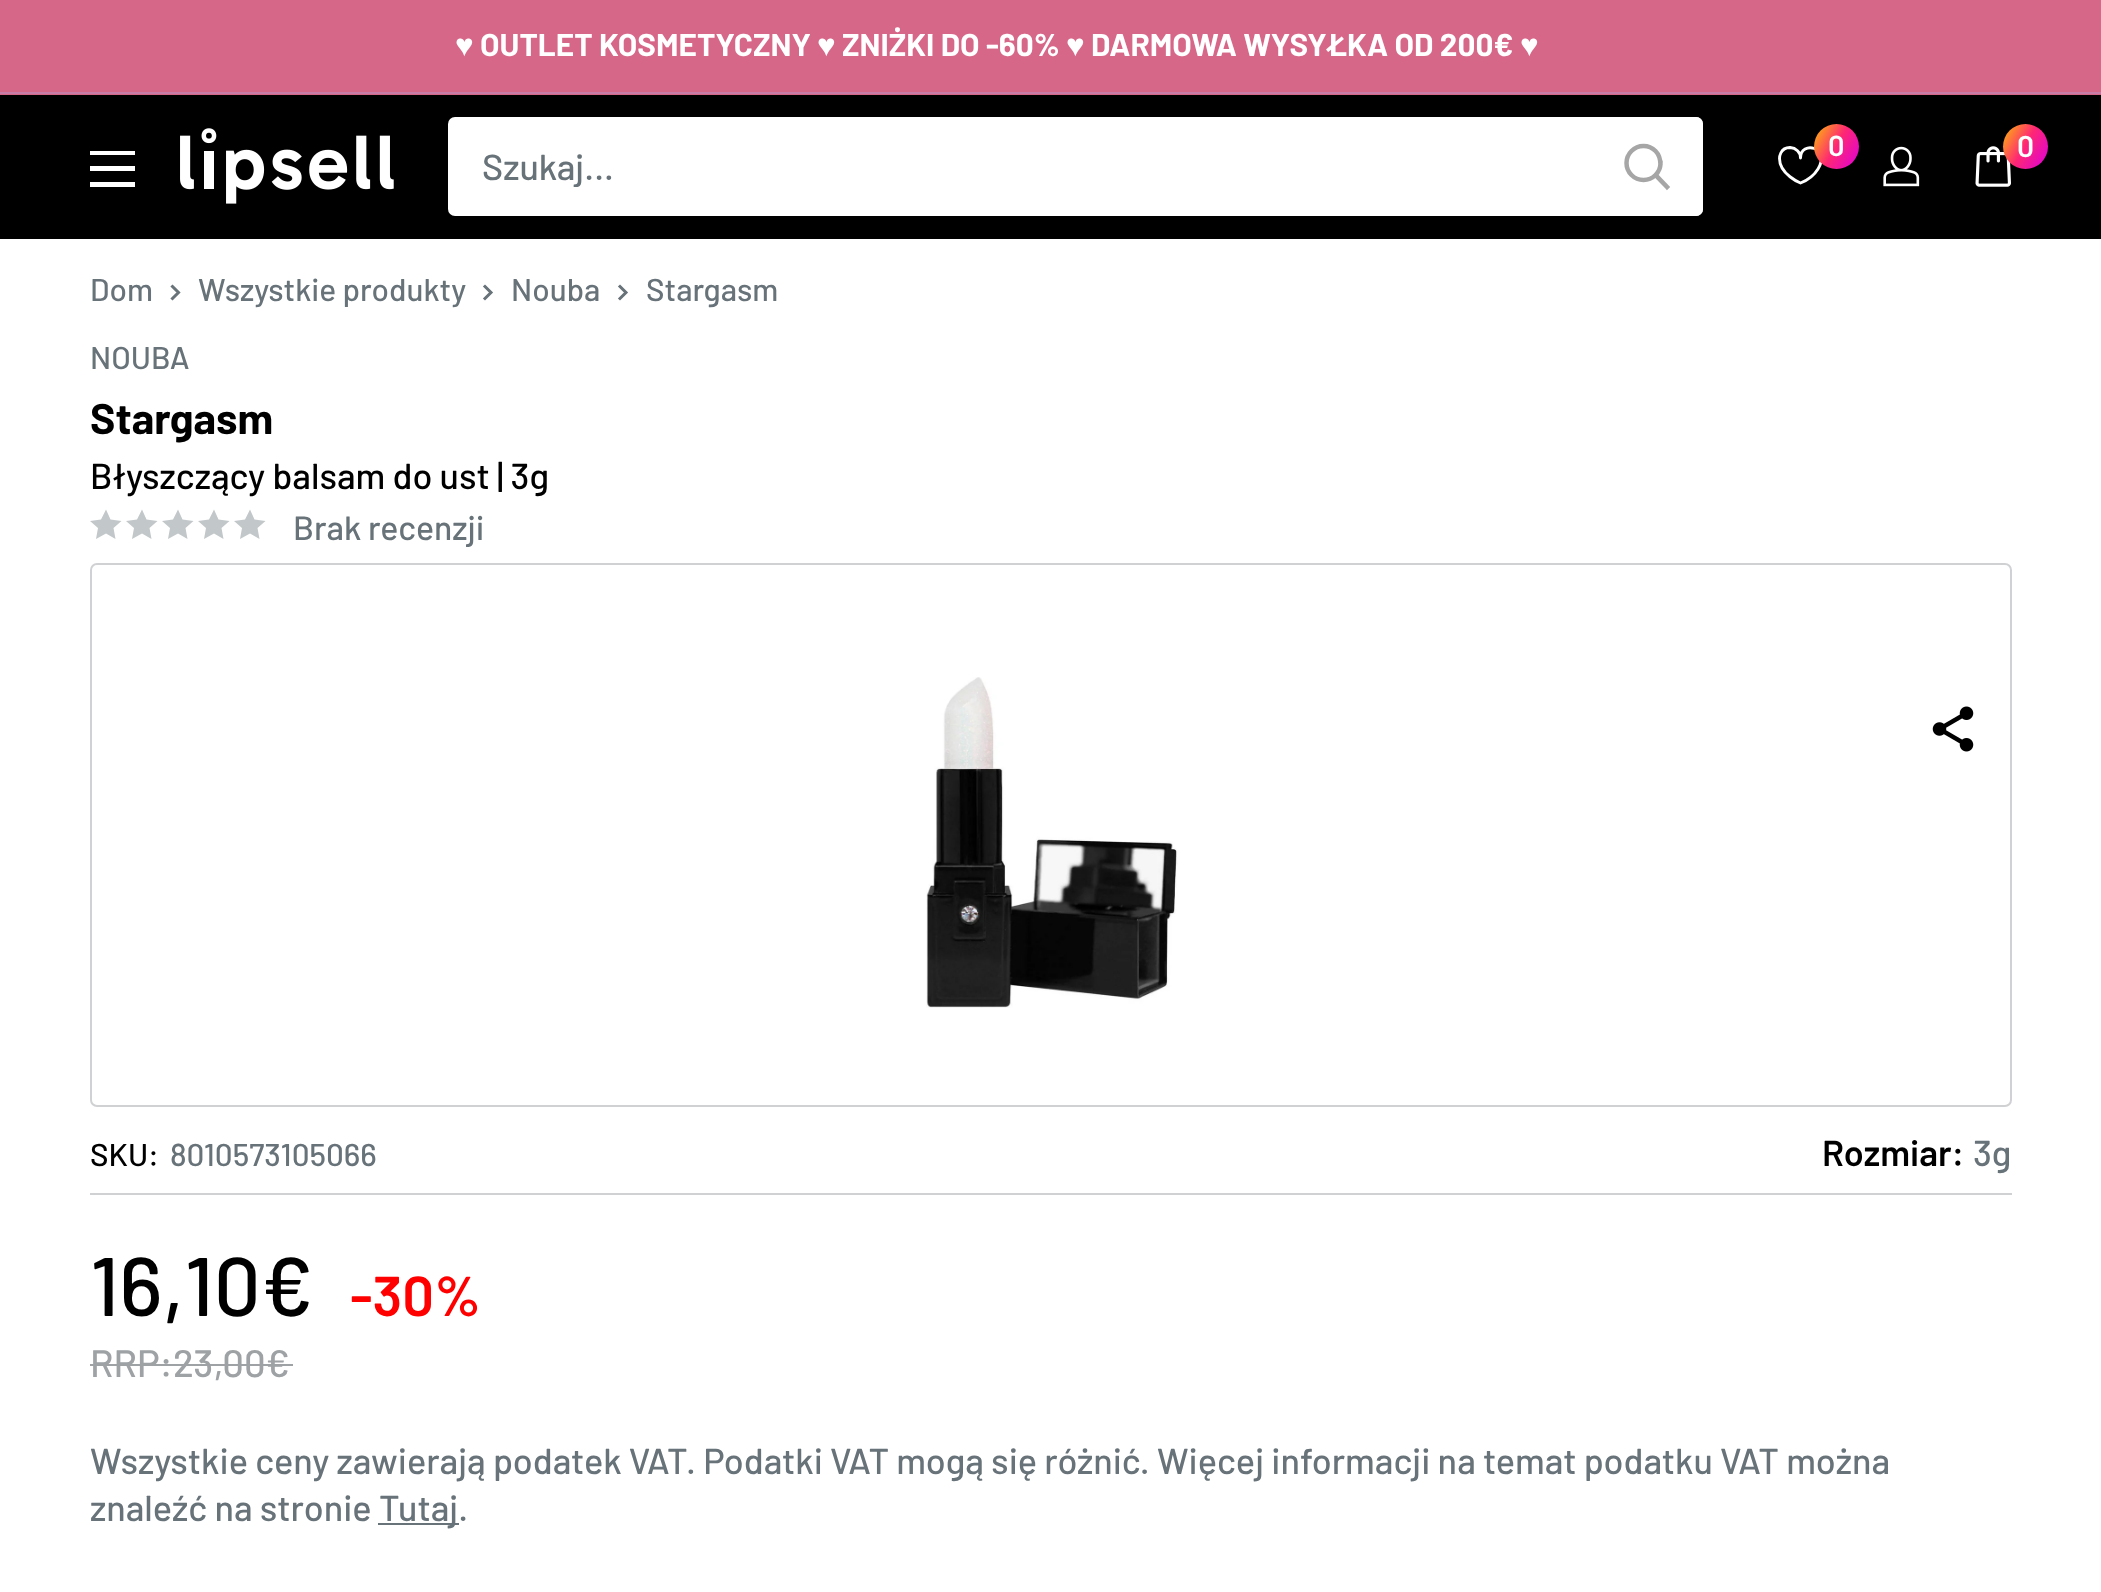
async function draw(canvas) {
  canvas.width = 2101
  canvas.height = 1592
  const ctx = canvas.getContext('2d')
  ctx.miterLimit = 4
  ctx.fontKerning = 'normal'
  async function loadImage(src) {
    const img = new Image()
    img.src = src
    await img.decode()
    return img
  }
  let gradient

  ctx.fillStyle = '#fff'
  ctx.fillRect(0, 0, 2101, 1592)
  ctx.fillStyle = '#d66789'
  ctx.fillRect(0, 0, 2101, 95)
  ctx.fillStyle = '#c77da8'
  ctx.fillRect(0, 92, 2101, 2)
  ctx.font = 'bold 31.5px Liberation Sans'
  ctx.fillStyle = '#fff'
  ctx.fillText('♥', 455, 56)
  ctx.font = 'bold 31.5px Barlow'
  ctx.fillText('OUTLET KOSMETYCZNY', 480, 56)
  ctx.font = 'bold 31.5px Liberation Sans'
  ctx.fillText('♥', 817, 56)
  ctx.font = 'bold 31.5px Barlow'
  ctx.fillText('ZNIŻKI DO -60%', 842, 56)
  ctx.font = 'bold 31.5px Liberation Sans'
  ctx.fillText('♥', 1066, 56)
  ctx.font = 'bold 31.5px Barlow'
  ctx.fillText('DARMOWA WYSYŁKA OD 200€', 1091, 56)
  ctx.font = 'bold 31.5px Liberation Sans'
  ctx.fillText('♥', 1520, 56)
  ctx.fillStyle = '#000'
  ctx.fillRect(0, 95, 2101, 144)
  ctx.drawImage(await loadImage('image0.png'), 180, 128, 214, 76)
  ctx.beginPath()
  ctx.moveTo(1800.5, 158)
  ctx.bezierCurveTo(1800.5, 140, 1831.5, 147, 1818, 169)
  ctx.bezierCurveTo(1814, 175.5, 1807, 180.5, 1800.5, 183)
  ctx.bezierCurveTo(1800.5, 183, 1779.5, 174.5, 1779.5, 158.5)
  ctx.bezierCurveTo(1779.5, 158.5, 1779.5, 147.5, 1790, 147.5)
  ctx.bezierCurveTo(1796, 148, 1800.5, 152, 1800.5, 158)
  ctx.strokeStyle = '#fff'
  ctx.lineWidth = 2.9
  ctx.lineCap = 'round'
  ctx.stroke()
  gradient = ctx.createLinearGradient(1809, 131, 1863, 162)
  gradient.addColorStop(0, '#fec400')
  gradient.addColorStop(0.5, '#fe2774')
  gradient.addColorStop(1, '#dd00db')
  ctx.fillStyle = gradient
  ctx.beginPath()
  ctx.arc(1836.5, 146.5, 22.5, 0, 2 * Math.PI)
  ctx.fill()
  ctx.font = '600 29px Barlow'
  ctx.fillStyle = '#fff'
  ctx.fillText('0', 1828, 156)
  ctx.drawImage(await loadImage('image1.png'), 1883, 146, 37, 41)
  ctx.drawImage(await loadImage('image2.png'), 1975, 146, 36, 41)
  gradient = ctx.createLinearGradient(1998, 130, 2052, 161)
  gradient.addColorStop(0, '#fec400')
  gradient.addColorStop(0.5, '#fe2774')
  gradient.addColorStop(1, '#dd00db')
  ctx.fillStyle = gradient
  ctx.beginPath()
  ctx.arc(2025.5, 146.5, 22.5, 0, 2 * Math.PI)
  ctx.fill()
  ctx.font = '600 30px Barlow'
  ctx.fillStyle = '#fff'
  ctx.fillText('0', 2017, 157)
  ctx.beginPath()
  ctx.moveTo(90, 182)
  ctx.lineTo(135, 182)
  ctx.lineTo(135, 187)
  ctx.lineTo(90, 187)
  ctx.closePath()
  ctx.moveTo(90, 151)
  ctx.lineTo(135, 151)
  ctx.lineTo(135, 155)
  ctx.lineTo(90, 155)
  ctx.closePath()
  ctx.moveTo(90, 166)
  ctx.lineTo(135, 166)
  ctx.lineTo(135, 171)
  ctx.lineTo(90, 171)
  ctx.closePath()
  ctx.fill('evenodd')
  ctx.beginPath()
  ctx.roundRect(448, 117, 1255, 99, 7)
  ctx.fill()
  ctx.save()
  ctx.beginPath()
  ctx.rect(482, 144, 1075, 43)
  ctx.clip()
  ctx.font = '500 36px Barlow'
  ctx.fillStyle = '#677279'
  ctx.fillText('Szukaj...', 482, 180)
  ctx.restore()
  ctx.beginPath()
  ctx.roundRect(1591, 117, 112, 99, [0, 7, 7, 0])
  ctx.fill()
  ctx.beginPath()
  ctx.moveTo(1667, 187)
  ctx.lineTo(1656, 175.5)
  ctx.strokeStyle = '#a6a6a6'
  ctx.lineWidth = 4.5
  ctx.lineCap = 'square'
  ctx.stroke()
  ctx.beginPath()
  ctx.arc(1643.5, 163, 17, 0, 2 * Math.PI)
  ctx.stroke()
  ctx.font = '500 31.5px Barlow'
  ctx.fillStyle = '#677279'
  ctx.fillText('Dom', 90, 301)
  ctx.beginPath()
  ctx.moveTo(172.5, 286.5)
  ctx.lineTo(178.5, 292.5)
  ctx.lineTo(172.5, 298.5)
  ctx.strokeStyle = '#677279'
  ctx.lineWidth = 3
  ctx.stroke()
  ctx.fillText('Wszystkie produkty', 198, 301)
  ctx.beginPath()
  ctx.moveTo(485, 286.5)
  ctx.lineTo(491, 292.5)
  ctx.lineTo(485, 298.5)
  ctx.stroke()
  ctx.fillText('Nouba', 511, 301)
  ctx.beginPath()
  ctx.moveTo(620, 286.5)
  ctx.lineTo(626, 292.5)
  ctx.lineTo(620, 298.5)
  ctx.stroke()
  ctx.fillText('Stargasm', 646, 301)
  ctx.fillText('NOUBA', 90, 369)
  ctx.font = 'bold 42.75px Barlow'
  ctx.fillStyle = '#000'
  ctx.fillText('Stargasm', 90, 434)
  ctx.font = '500 36px Barlow'
  ctx.fillText('Błyszczący balsam do ust | 3g', 90, 489)
  ctx.fillStyle = '#c2c7c9'
  ctx.beginPath()
  ctx.moveTo(121.5, 521)
  ctx.lineTo(110.5, 519.5)
  ctx.lineTo(106, 509.5)
  ctx.lineTo(101, 519.5)
  ctx.lineTo(90, 521)
  ctx.lineTo(98, 528)
  ctx.lineTo(96, 539)
  ctx.lineTo(106, 533.5)
  ctx.lineTo(115.5, 539)
  ctx.lineTo(113.5, 528)
  ctx.closePath()
  ctx.fill()
  ctx.beginPath()
  ctx.moveTo(157.5, 521)
  ctx.lineTo(146.5, 519.5)
  ctx.lineTo(142, 509.5)
  ctx.lineTo(137, 519.5)
  ctx.lineTo(126, 521)
  ctx.lineTo(134, 528)
  ctx.lineTo(132, 539)
  ctx.lineTo(142, 533.5)
  ctx.lineTo(151.5, 539)
  ctx.lineTo(149.5, 528)
  ctx.closePath()
  ctx.fill()
  ctx.beginPath()
  ctx.moveTo(193.5, 521)
  ctx.lineTo(182.5, 519.5)
  ctx.lineTo(178, 509.5)
  ctx.lineTo(173, 519.5)
  ctx.lineTo(162, 521)
  ctx.lineTo(170, 528)
  ctx.lineTo(168, 539)
  ctx.lineTo(178, 533.5)
  ctx.lineTo(187.5, 539)
  ctx.lineTo(185.5, 528)
  ctx.closePath()
  ctx.fill()
  ctx.beginPath()
  ctx.moveTo(229.5, 521)
  ctx.lineTo(218.5, 519.5)
  ctx.lineTo(214, 509.5)
  ctx.lineTo(209, 519.5)
  ctx.lineTo(198, 521)
  ctx.lineTo(206, 528)
  ctx.lineTo(204, 539)
  ctx.lineTo(214, 533.5)
  ctx.lineTo(223.5, 539)
  ctx.lineTo(221.5, 528)
  ctx.closePath()
  ctx.fill()
  ctx.beginPath()
  ctx.moveTo(265.5, 521)
  ctx.lineTo(254.5, 519.5)
  ctx.lineTo(250, 509.5)
  ctx.lineTo(245, 519.5)
  ctx.lineTo(234, 521)
  ctx.lineTo(242, 528)
  ctx.lineTo(240, 539)
  ctx.lineTo(250, 533.5)
  ctx.lineTo(259.5, 539)
  ctx.lineTo(257.5, 528)
  ctx.closePath()
  ctx.fill()
  ctx.font = '500 33.75px Barlow'
  ctx.fillStyle = '#677279'
  ctx.fillText('Brak recenzji', 293, 540)
  ctx.beginPath()
  ctx.roundRect(91, 564, 1920, 542, 6)
  ctx.strokeStyle = '#d0d1d3'
  ctx.lineWidth = 2
  ctx.stroke()
  ctx.drawImage(await loadImage('image3.png'), 926, 677, 252, 331)
  ctx.drawImage(await loadImage('image4.png'), 1932, 706, 42, 46)
  ctx.font = '500 31.5px Barlow'
  ctx.fillStyle = '#000'
  ctx.fillText('SKU:', 90, 1166)
  ctx.fillStyle = '#677279'
  ctx.fillText('8010573105066', 170, 1166)
  ctx.font = '600 36px Barlow'
  ctx.fillStyle = '#000'
  ctx.fillText('Rozmiar:', 1822, 1166)
  ctx.font = '500 36px Barlow'
  ctx.fillStyle = '#677279'
  ctx.fillText('3g', 1973, 1166)
  ctx.fillStyle = '#d0d1d3'
  ctx.fillRect(90, 1193, 1922, 2)
  ctx.font = '500 83px Barlow'
  ctx.fillStyle = '#000'
  ctx.fillText('16,10€', 90, 1316)
  ctx.font = '500 38.25px Barlow'
  ctx.fillStyle = '#9ea2a4'
  ctx.fillText('RRP:23,00€', 90, 1377)
  ctx.fillRect(90, 1364, 203, 2)
  ctx.font = '600 56px Barlow'
  ctx.fillStyle = '#f00'
  ctx.fillText('-30%', 350, 1316)
  ctx.font = '500 36px Barlow'
  ctx.fillStyle = '#677279'
  ctx.fillText('Wszystkie ceny zawierają podatek VAT. Podatki VAT mogą się różnić. Więcej informacji na temat podatku VAT można', 90, 1474)
  ctx.fillText('znaleźć na stronie', 90, 1521)
  ctx.fillRect(378, 1523, 81, 2)
  ctx.fillText('Tutaj.', 379, 1521)
}

draw(document.querySelector('canvas'))
